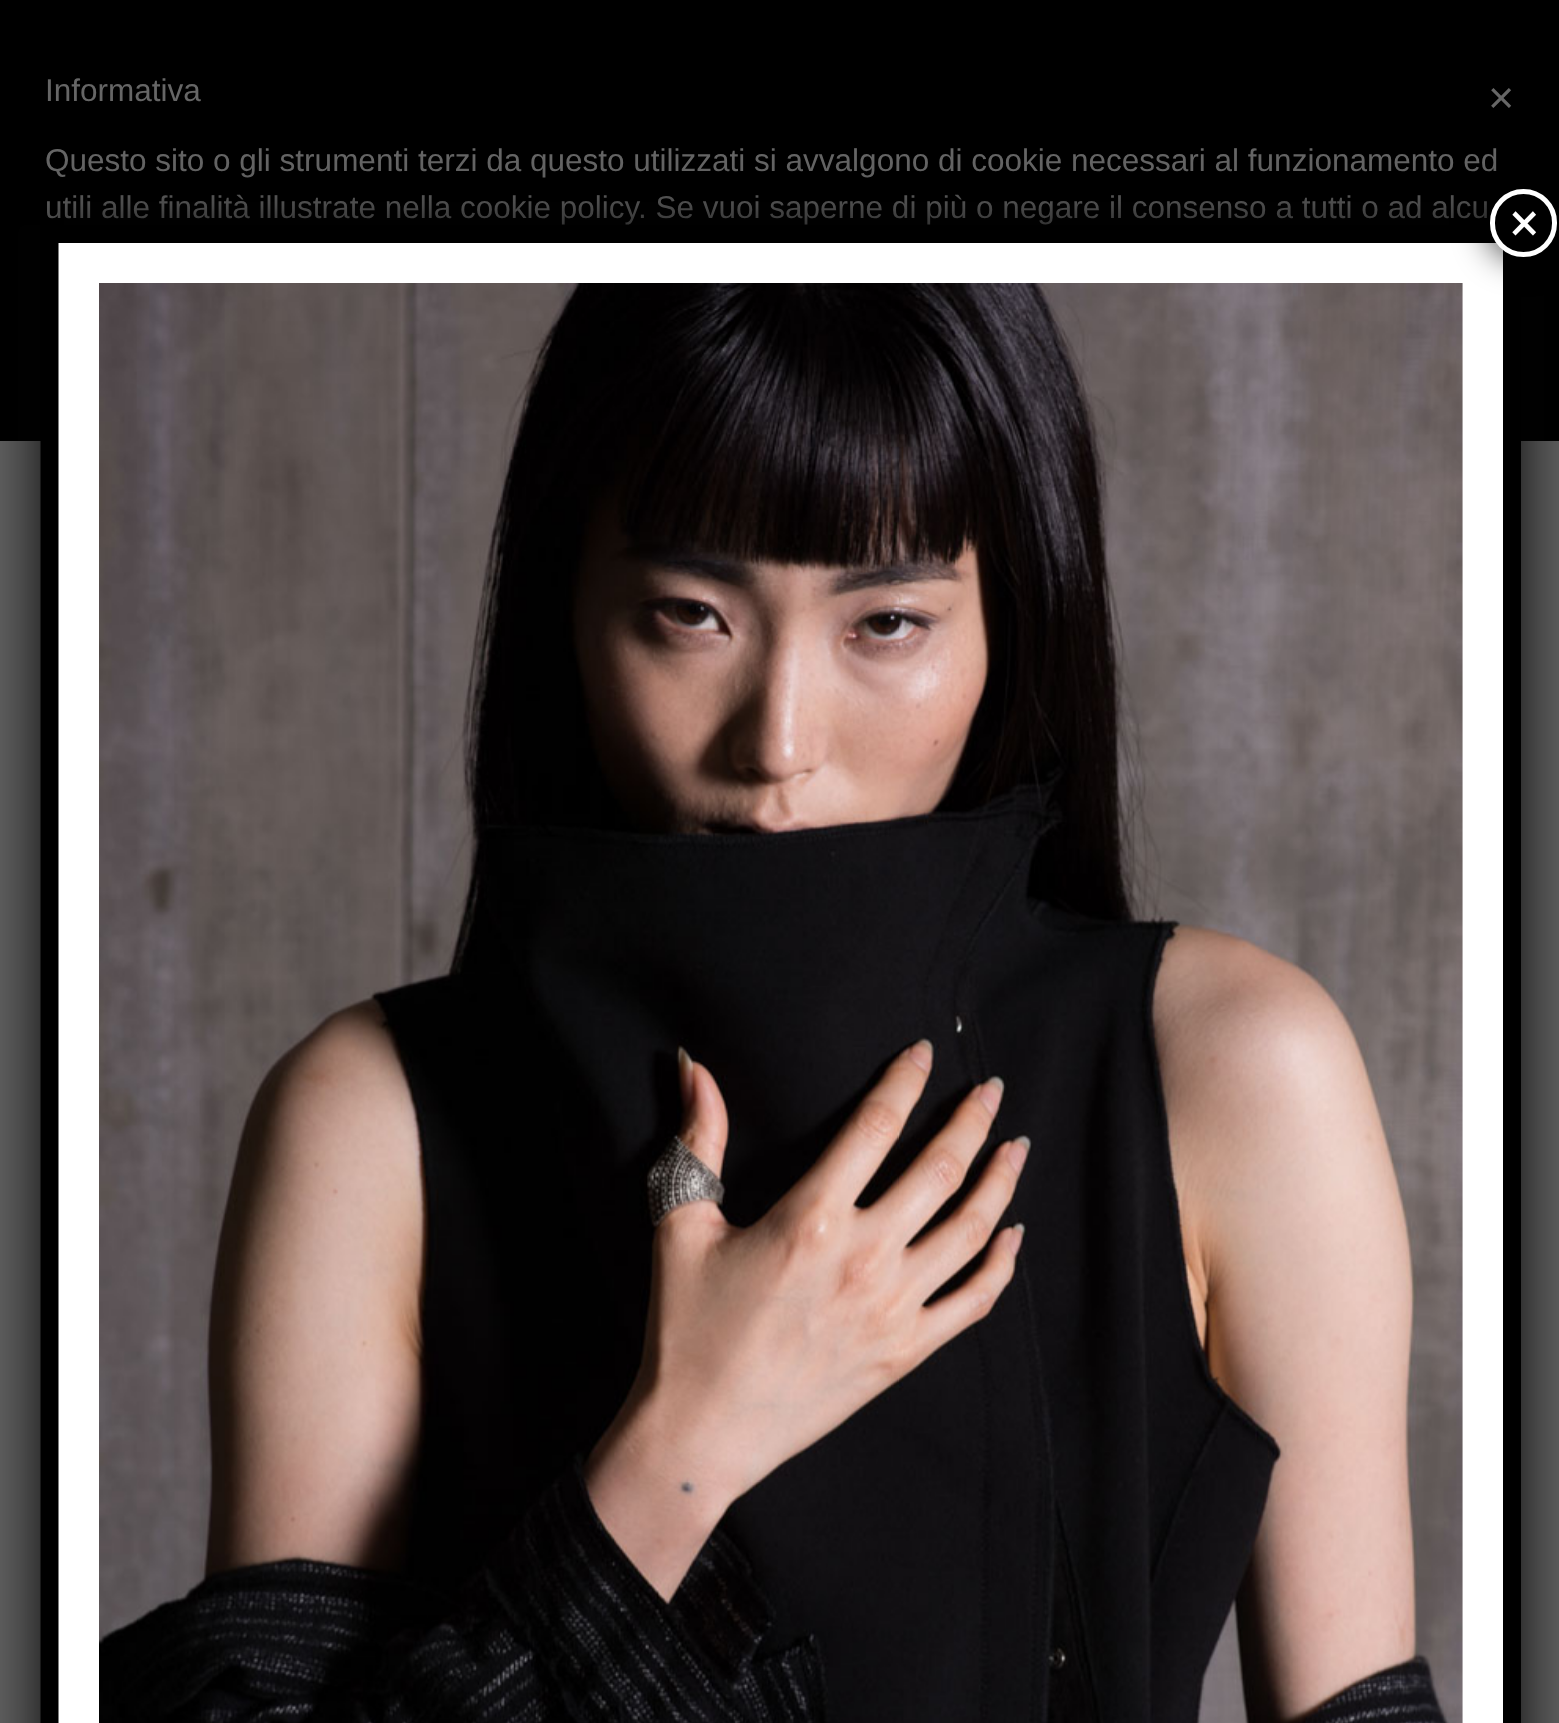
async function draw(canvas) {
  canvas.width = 1559
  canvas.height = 1723
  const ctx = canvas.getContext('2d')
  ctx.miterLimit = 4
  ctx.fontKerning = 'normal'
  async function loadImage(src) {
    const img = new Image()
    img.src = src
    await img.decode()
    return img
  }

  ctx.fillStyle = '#666'
  ctx.fillRect(0, 0, 1559, 1723)
  ctx.fillStyle = '#000'
  ctx.fillRect(0, 0, 1559, 441)
  ctx.font = '31.5px Liberation Sans'
  ctx.fillStyle = '#666'
  ctx.fillText('Informativa', 45, 101)
  ctx.fillText('Questo sito o gli strumenti terzi da questo utilizzati si avvalgono di cookie necessari al funzionamento ed', 45, 171)
  ctx.fillText('utili alle finalità illustrate nella cookie policy. Se vuoi saperne di più o negare il consenso a tutti o ad alcu', 45, 218)
  ctx.font = '45px Liberation Sans'
  ctx.fillText('×', 1488, 113)
  ctx.fillStyle = '#020202'
  ctx.filter = 'blur(34px)'
  ctx.beginPath()
  ctx.roundRect(41, 225, 1480, 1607, 7)
  ctx.fill()
  ctx.filter = 'none'
  ctx.fillStyle = '#fff'
  ctx.fillRect(58, 243, 1445, 1480)
  ctx.beginPath()
  ctx.moveTo(49.5, 234)
  ctx.lineTo(1512, 234)
  ctx.lineTo(1512, 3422)
  ctx.lineTo(49.5, 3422)
  ctx.closePath()
  ctx.strokeStyle = '#000'
  ctx.lineWidth = 18
  ctx.stroke()
  ctx.drawImage(await loadImage('image0.png'), 99, 283, 1364, 1440)
  ctx.fillStyle = '#020202bf'
  ctx.filter = 'blur(17px)'
  ctx.beginPath()
  ctx.roundRect(1487, 187, 72, 72, 36)
  ctx.fill()
  ctx.filter = 'none'
  ctx.fillStyle = '#000'
  ctx.beginPath()
  ctx.roundRect(1492.5, 191.5, 62, 63, 31)
  ctx.fill()
  ctx.strokeStyle = '#fff'
  ctx.lineWidth = 5
  ctx.stroke()
  ctx.font = '54px Roboto'
  ctx.fillStyle = '#fff'
  ctx.fillText('×', 1510, 241)
}

draw(document.querySelector('canvas'))
